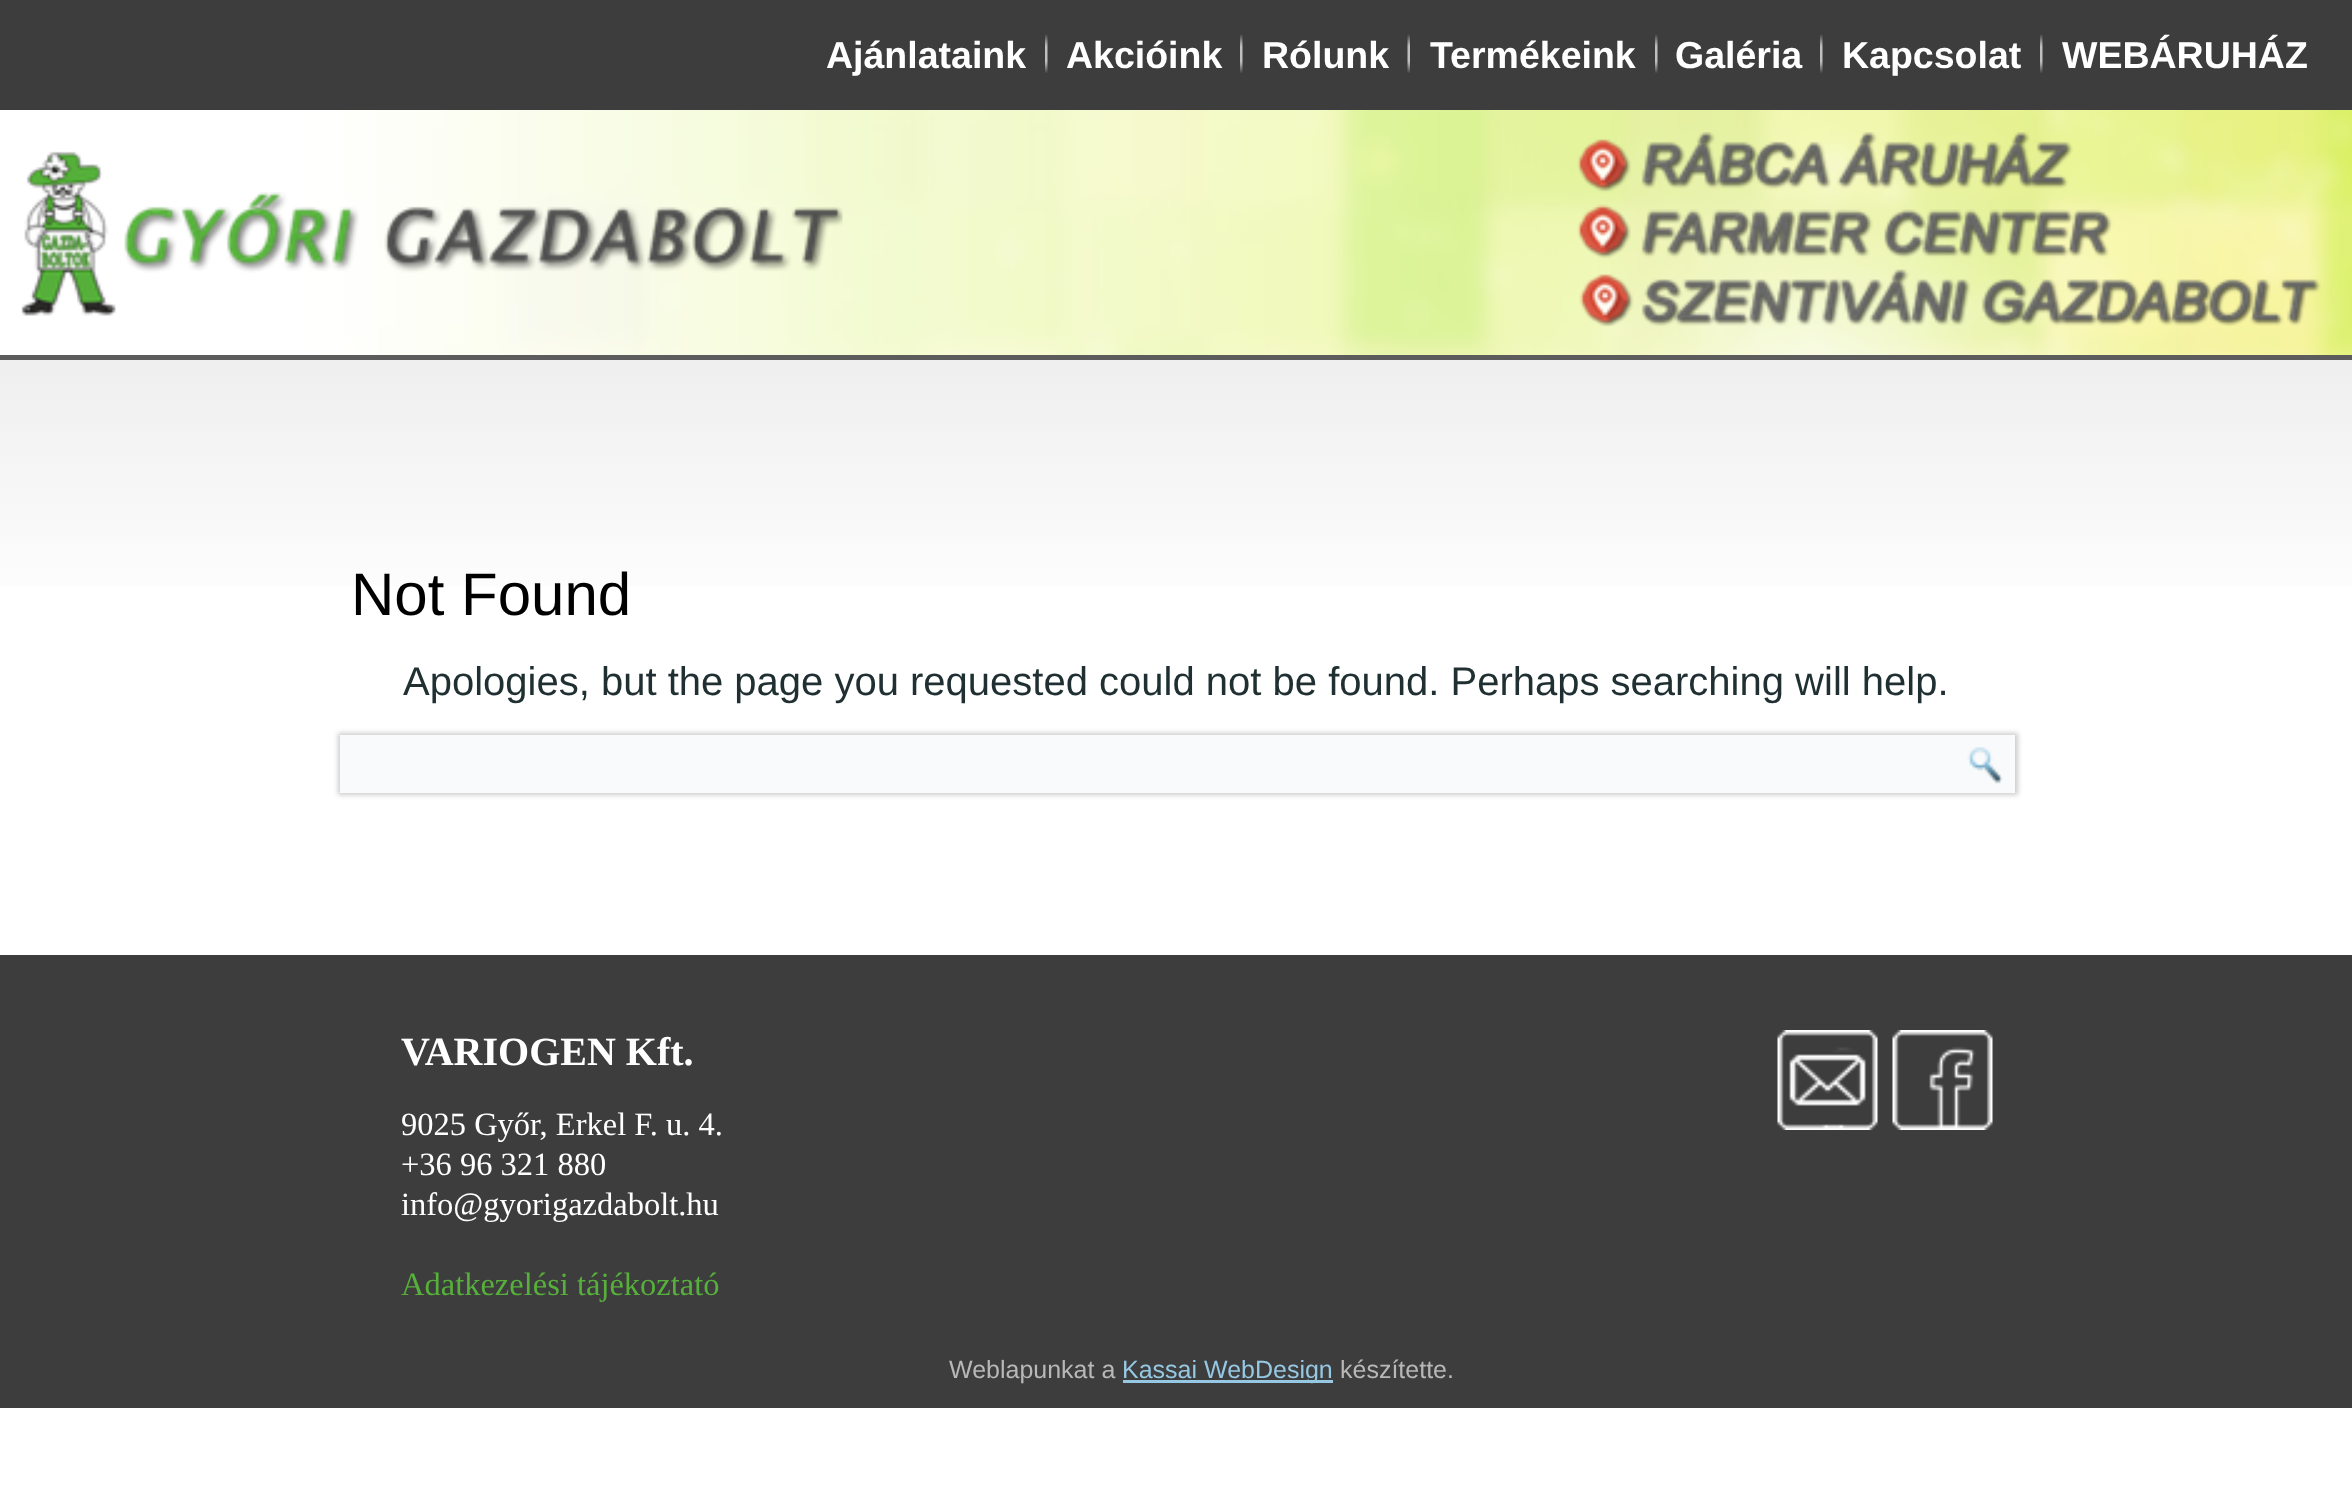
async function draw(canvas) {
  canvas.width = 2352
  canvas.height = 1491
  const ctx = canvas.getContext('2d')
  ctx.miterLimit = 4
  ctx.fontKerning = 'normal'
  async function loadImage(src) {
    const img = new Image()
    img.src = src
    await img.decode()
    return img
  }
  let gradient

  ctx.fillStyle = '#fff'
  ctx.fillRect(0, 0, 2352, 1491)
  gradient = ctx.createLinearGradient(1176, 0, 1176, 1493)
  gradient.addColorStop(0, '#d9d9d9')
  gradient.addColorStop(0.42, '#fff')
  ctx.fillStyle = gradient
  ctx.fillRect(0, 360, 2352, 226)
  ctx.fillStyle = '#3d3d3d'
  ctx.fillRect(0, 0, 2352, 110)
  ctx.font = 'bold 37.5px Liberation Sans'
  ctx.fillStyle = '#fff'
  ctx.fillText('Ajánlataink', 826, 68)
  ctx.drawImage(await loadImage('image0.png'), 1045, 34, 3, 39)
  ctx.fillText('Akcióink', 1066, 68)
  ctx.drawImage(await loadImage('image0.png'), 1240, 34, 3, 39)
  ctx.fillText('Rólunk', 1262, 68)
  ctx.drawImage(await loadImage('image1.png'), 1407, 34, 3, 39)
  ctx.fillText('Termékeink', 1430, 68)
  ctx.drawImage(await loadImage('image0.png'), 1655, 34, 3, 39)
  ctx.fillText('Galéria', 1675, 68)
  ctx.drawImage(await loadImage('image0.png'), 1820, 34, 3, 39)
  ctx.fillText('Kapcsolat', 1842, 68)
  ctx.drawImage(await loadImage('image0.png'), 2040, 34, 3, 39)
  ctx.fillText('WEBÁRUHÁZ', 2062, 68)
  ctx.drawImage(await loadImage('image2.png'), 0, 110, 2352, 245)
  ctx.fillStyle = '#5c5c5c'
  ctx.fillRect(0, 355, 2352, 5)
  ctx.drawImage(await loadImage('image3.png'), 21, 151, 822, 165)
  ctx.drawImage(await loadImage('image4.png'), 1577, 132, 744, 195)
  ctx.font = '60px Liberation Sans'
  ctx.fillStyle = '#000'
  ctx.fillText('Not Found', 351, 615)
  ctx.font = '40px Liberation Sans'
  ctx.fillStyle = '#1f2f32'
  ctx.fillText('Apologies, but the page you requested could not be found. Perhaps searching will help.', 403, 695)
  ctx.fillStyle = '#00000033'
  ctx.filter = 'blur(2.5px)'
  ctx.beginPath()
  ctx.rect(338, 733, 1680, 62)
  ctx.fill()
  ctx.filter = 'none'
  ctx.fillStyle = '#f9fafb'
  ctx.fillRect(340, 735, 1675, 58)
  ctx.drawImage(await loadImage('image5.png'), 1967, 747, 36, 37)
  ctx.fillStyle = '#3d3d3d'
  ctx.fillRect(0, 955, 2352, 453)
  ctx.font = 'bold 40px Liberation Serif'
  ctx.fillStyle = '#fff'
  ctx.fillText('VARIOGEN Kft.', 401, 1065)
  ctx.font = '32.5px Liberation Serif'
  ctx.fillText('9025 Győr, Erkel F. u. 4.', 401, 1135)
  ctx.fillText('+36 96 321 880', 401, 1175)
  ctx.fillText('info@gyorigazdabolt.hu', 401, 1215)
  ctx.fillStyle = '#56b03b'
  ctx.fillText('Adatkezelési tájékoztató', 401, 1295)
  ctx.drawImage(await loadImage('image6.png'), 1777, 1030, 101, 100)
  ctx.drawImage(await loadImage('image7.png'), 1892, 1030, 101, 100)
  ctx.font = '25px Liberation Sans'
  ctx.fillStyle = '#b8b8b8'
  ctx.fillText('Weblapunkat a', 949, 1378)
  ctx.fillStyle = '#96c8e3'
  ctx.fillRect(1123, 1380, 210, 3)
  ctx.fillText('Kassai WebDesign', 1122, 1378)
  ctx.fillStyle = '#b8b8b8'
  ctx.fillText('készítette.', 1340, 1378)
}

draw(document.querySelector('canvas'))
